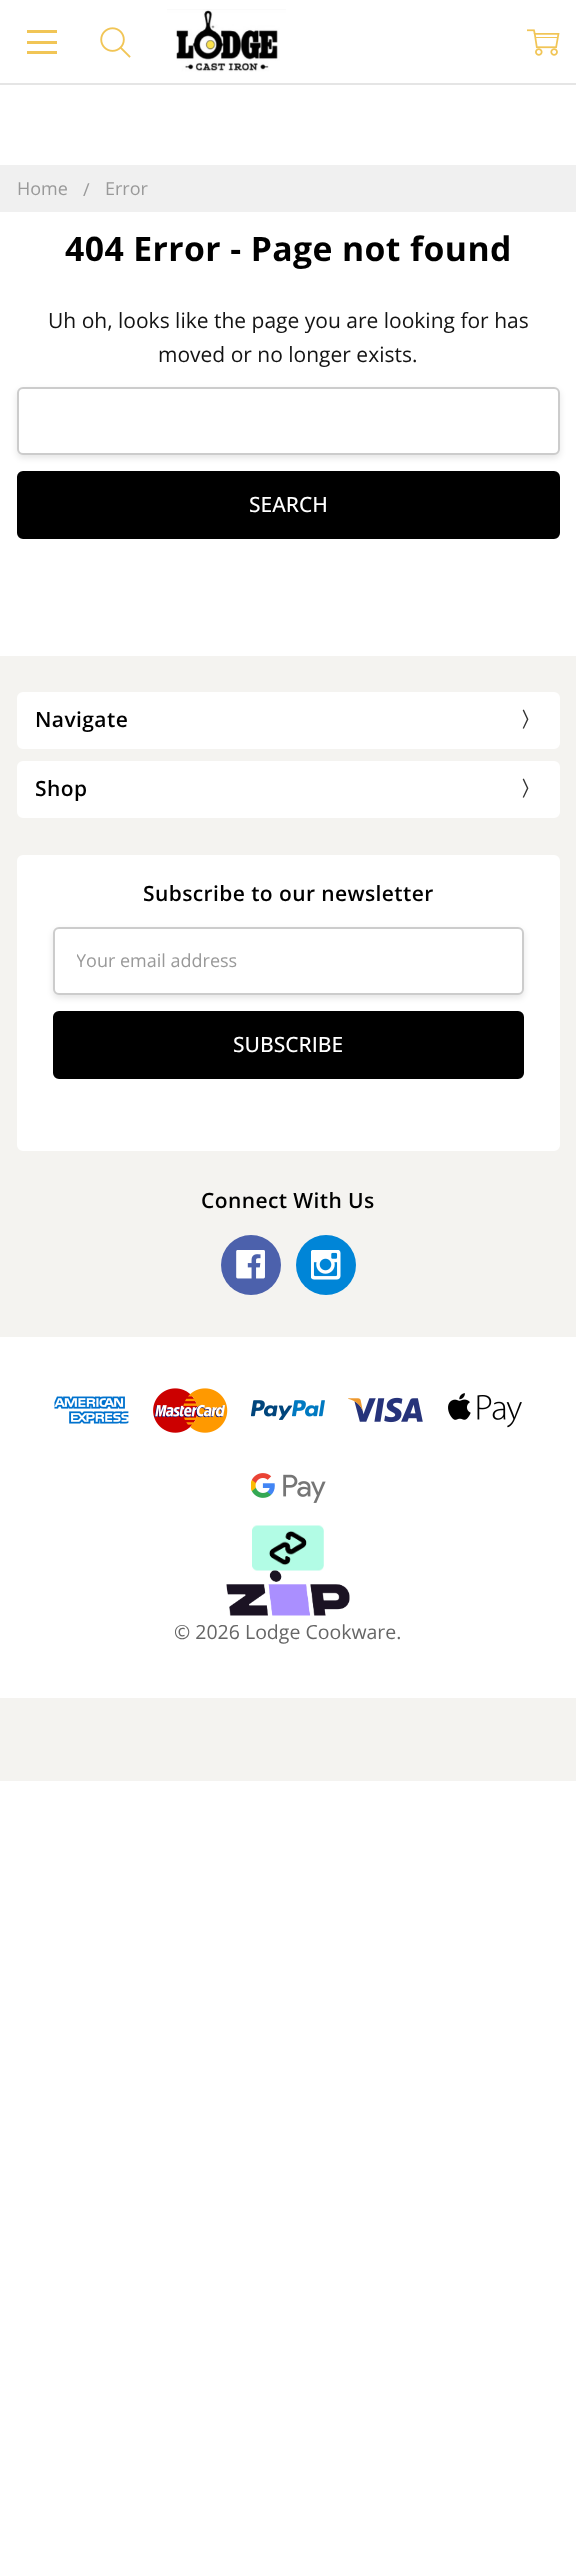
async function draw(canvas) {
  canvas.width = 576
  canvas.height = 2560
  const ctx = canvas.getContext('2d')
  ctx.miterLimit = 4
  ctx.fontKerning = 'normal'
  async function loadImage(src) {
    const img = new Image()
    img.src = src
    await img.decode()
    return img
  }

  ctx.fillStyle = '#fff'
  ctx.fillRect(0, 0, 576, 2560)
  ctx.fillStyle = '#e5e5e5'
  ctx.fillRect(0, 83, 576, 2)
  ctx.drawImage(await loadImage('image0.png'), 167, 9, 119, 63)
  ctx.fillStyle = '#f1c556'
  ctx.fillRect(27, 41, 30, 3)
  ctx.fillRect(27, 30, 30, 3)
  ctx.fillRect(27, 51, 30, 3)
  ctx.drawImage(await loadImage('image1.png'), 100, 27, 31, 31)
  ctx.drawImage(await loadImage('image2.png'), 527, 29, 33, 27)
  ctx.fillStyle = '#f0f0f0'
  ctx.fillRect(0, 165, 576, 47)
  ctx.font = '18px Open Sans'
  ctx.fillStyle = '#999'
  ctx.fillText('Home', 17, 195)
  ctx.fillText('/', 83, 196)
  ctx.fillText('Error', 105, 195)
  ctx.letterSpacing = '0.4px'
  ctx.font = 'bold 33.75px Open Sans'
  ctx.fillStyle = '#000'
  ctx.fillText('404 Error - Page not found', 65, 261)
  ctx.letterSpacing = '0px'
  ctx.font = '21px Open Sans'
  ctx.fillStyle = '#131313'
  ctx.fillText('Uh oh, looks like the page you are looking for has', 48, 328)
  ctx.fillText('moved or no longer exists.', 158, 362)
  ctx.fillStyle = '#0000001a'
  ctx.filter = 'blur(3px)'
  ctx.beginPath()
  ctx.roundRect(17, 390, 543, 68, 6)
  ctx.fill()
  ctx.filter = 'none'
  ctx.fillStyle = '#fff'
  ctx.beginPath()
  ctx.roundRect(18, 388, 541, 66, 5)
  ctx.fill()
  ctx.strokeStyle = '#ccc'
  ctx.lineWidth = 2
  ctx.stroke()
  ctx.fillStyle = '#000'
  ctx.beginPath()
  ctx.roundRect(18, 472, 541, 66, 5)
  ctx.fill()
  ctx.strokeStyle = '#000'
  ctx.stroke()
  ctx.font = '500 21px Open Sans'
  ctx.fillStyle = '#fff'
  ctx.fillText('SEARCH', 249, 512)
  ctx.fillStyle = '#f4f3f0'
  ctx.fillRect(0, 656, 576, 1125)
  ctx.fillStyle = '#fff'
  ctx.beginPath()
  ctx.roundRect(18, 693, 541, 55, 5)
  ctx.fill()
  ctx.strokeStyle = '#fff'
  ctx.stroke()
  ctx.letterSpacing = '0.4px'
  ctx.font = '600 21px Open Sans'
  ctx.fillStyle = '#000'
  ctx.fillText('Navigate', 35, 727)
  ctx.font = 'bold 21px WenQuanYi Zen Hei'
  ctx.fillStyle = '#333'
  ctx.fillText('〉', 520, 727)
  ctx.fillStyle = '#fff'
  ctx.beginPath()
  ctx.roundRect(18, 762, 541, 55, 5)
  ctx.fill()
  ctx.stroke()
  ctx.font = '600 21px Open Sans'
  ctx.fillStyle = '#000'
  ctx.fillText('Shop', 35, 796)
  ctx.font = 'bold 21px WenQuanYi Zen Hei'
  ctx.fillStyle = '#333'
  ctx.fillText('〉', 520, 796)
  ctx.fillStyle = '#fff'
  ctx.beginPath()
  ctx.roundRect(18, 856, 541, 294, 5)
  ctx.fill()
  ctx.stroke()
  ctx.font = '600 21px Open Sans'
  ctx.fillStyle = '#000'
  ctx.fillText('Subscribe to our newsletter', 143, 901)
  ctx.fillStyle = '#0000001a'
  ctx.filter = 'blur(3px)'
  ctx.beginPath()
  ctx.roundRect(53, 930, 471, 68, 6)
  ctx.fill()
  ctx.filter = 'none'
  ctx.fillStyle = '#fff'
  ctx.beginPath()
  ctx.roundRect(54, 928, 469, 66, 5)
  ctx.fill()
  ctx.strokeStyle = '#ccc'
  ctx.stroke()
  ctx.save()
  ctx.beginPath()
  ctx.rect(77, 948, 423, 26)
  ctx.clip()
  ctx.letterSpacing = '0px'
  ctx.font = '18px Open Sans'
  ctx.fillStyle = '#999'
  ctx.fillText('Your email address', 76, 967)
  ctx.restore()
  ctx.fillStyle = '#000'
  ctx.beginPath()
  ctx.roundRect(54, 1012, 469, 66, 5)
  ctx.fill()
  ctx.strokeStyle = '#000'
  ctx.stroke()
  ctx.letterSpacing = '0px'
  ctx.font = '500 21px Open Sans'
  ctx.fillStyle = '#fff'
  ctx.fillText('SUBSCRIBE', 233, 1052)
  ctx.letterSpacing = '0.4px'
  ctx.font = '600 21px Open Sans'
  ctx.fillStyle = '#000'
  ctx.fillText('Connect With Us', 201, 1208)
  ctx.fillStyle = '#4c61ac'
  ctx.beginPath()
  ctx.arc(251, 1265, 30, 0, 2 * Math.PI)
  ctx.fill()
  ctx.drawImage(await loadImage('image3.png'), 236, 1250, 29, 29)
  ctx.fillStyle = '#0085d7'
  ctx.beginPath()
  ctx.arc(326, 1265, 30, 0, 2 * Math.PI)
  ctx.fill()
  ctx.drawImage(await loadImage('image4.png'), 311, 1250, 30, 30)
  ctx.fillStyle = '#fff'
  ctx.fillRect(0, 1337, 576, 361)
  ctx.drawImage(await loadImage('image5.png'), 54, 1396, 75, 28)
  ctx.drawImage(await loadImage('image6.png'), 153, 1388, 75, 45)
  ctx.drawImage(await loadImage('image7.png'), 251, 1400, 74, 20)
  ctx.drawImage(await loadImage('image8.png'), 348, 1397, 75, 26)
  ctx.drawImage(await loadImage('image9.png'), 448, 1393, 74, 35)
  ctx.drawImage(await loadImage('image10.png'), 251, 1473, 75, 30)
  ctx.drawImage(await loadImage('image11.png'), 252, 1525, 72, 46)
  ctx.drawImage(await loadImage('image12.png'), 226, 1570, 124, 46)
  ctx.letterSpacing = '0px'
  ctx.font = '19.5px Open Sans'
  ctx.fillStyle = '#666'
  ctx.fillText('© 2026 Lodge Cookware.', 174, 1639)
}

draw(document.querySelector('canvas'))
